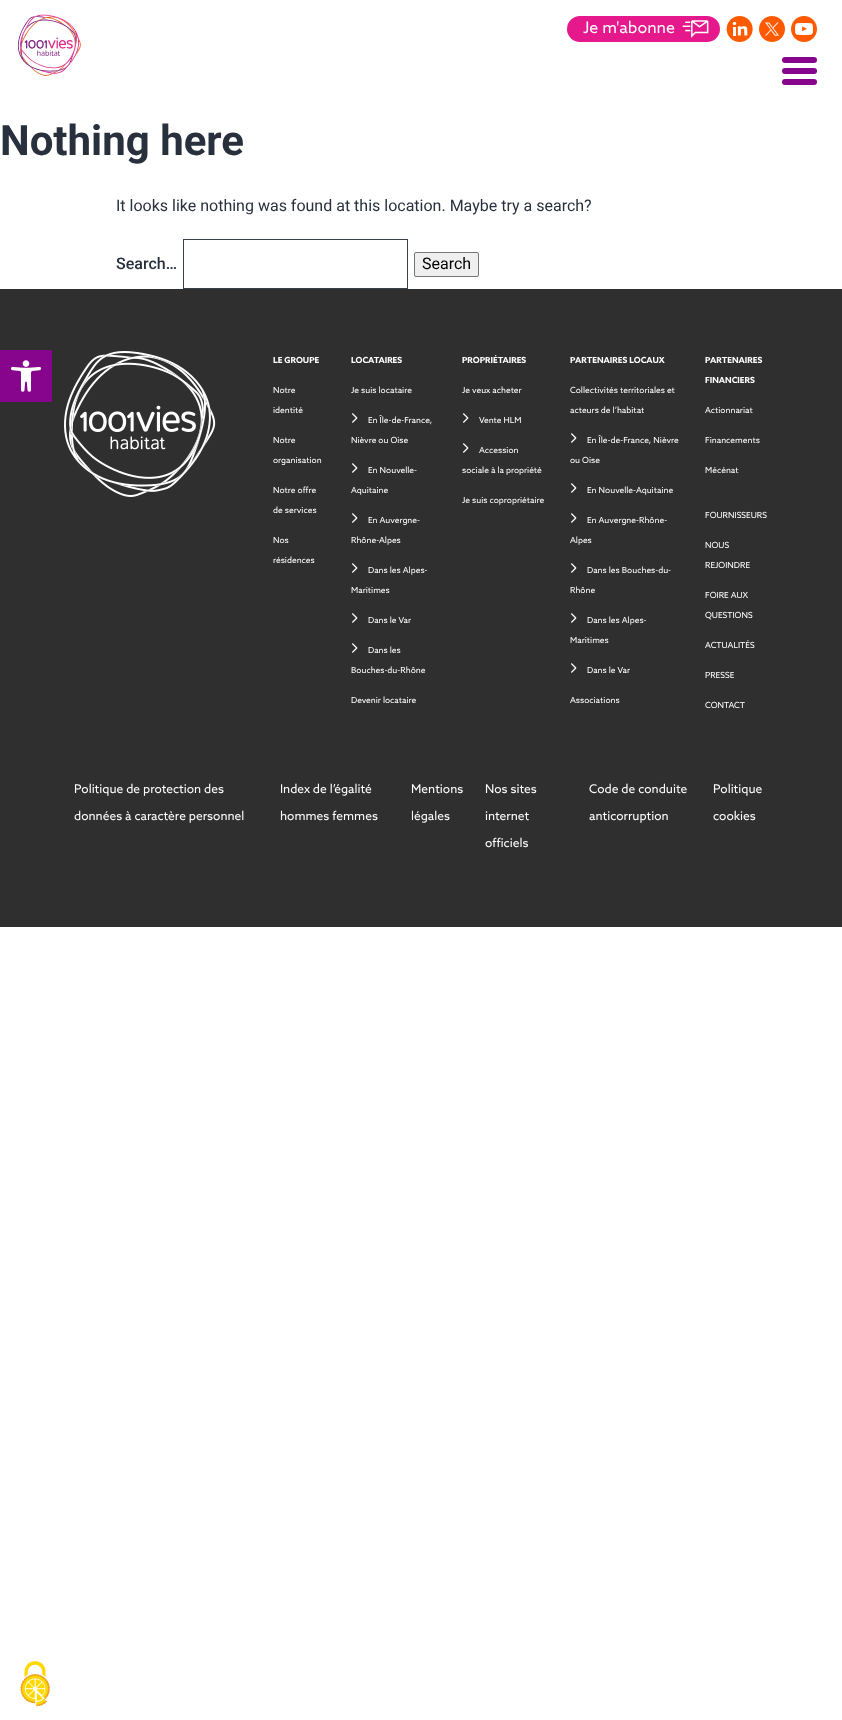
async function draw(canvas) {
  canvas.width = 842
  canvas.height = 1720
  const ctx = canvas.getContext('2d')
  ctx.miterLimit = 4
  ctx.fontKerning = 'normal'
  async function loadImage(src) {
    const img = new Image()
    img.src = src
    await img.decode()
    return img
  }

  ctx.fillStyle = '#fff'
  ctx.fillRect(0, 0, 842, 1720)
  ctx.drawImage(await loadImage('image0.png'), 17, 14, 64, 62)
  ctx.fillStyle = '#e6198c'
  ctx.beginPath()
  ctx.roundRect(567, 16, 153, 26, 13)
  ctx.fill()
  ctx.drawImage(await loadImage('image1.png'), 682, 20, 27, 18)
  ctx.font = '16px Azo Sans'
  ctx.fillStyle = '#fff'
  ctx.fillText('Je m\'abonne', 583, 33)
  ctx.drawImage(await loadImage('image2.png'), 726, 16, 27, 26)
  ctx.drawImage(await loadImage('image3.png'), 759, 16, 26, 26)
  ctx.drawImage(await loadImage('image4.png'), 791, 16, 26, 26)
  ctx.fillStyle = '#87058c'
  ctx.beginPath()
  ctx.roundRect(782, 57, 35, 6, 3)
  ctx.fill()
  ctx.beginPath()
  ctx.roundRect(782, 68, 35, 6, 3)
  ctx.fill()
  ctx.beginPath()
  ctx.roundRect(782, 79, 35, 6, 3)
  ctx.fill()
  ctx.font = 'bold 42px Roboto'
  ctx.fillStyle = '#28303d'
  ctx.fillText('Nothing here', 0, 155)
  ctx.font = '16px Roboto'
  ctx.fillText('It looks like nothing was found at this location. Maybe try a search?', 116, 211)
  ctx.font = '500 16px Roboto'
  ctx.fillText('Search…', 116, 269)
  ctx.strokeStyle = '#39414d'
  ctx.strokeRect(183.5, 239.5, 224, 49)
  ctx.fillStyle = '#efefef'
  ctx.beginPath()
  ctx.roundRect(414.5, 252.5, 64, 24, 1.5)
  ctx.fill()
  ctx.strokeStyle = '#767676'
  ctx.stroke()
  ctx.font = '16px Roboto'
  ctx.fillStyle = '#000'
  ctx.fillText('Search', 422, 269)
  ctx.fillStyle = '#2f2f2f'
  ctx.fillRect(0, 289, 842, 638)
  ctx.drawImage(await loadImage('image5.png'), 64, 351, 152, 146)
  ctx.font = 'bold 8.4px Azo Sans'
  ctx.fillStyle = '#fff'
  ctx.fillText('LE GROUPE', 273, 363)
  ctx.font = '8.4px Azo Sans'
  ctx.fillText('Notre', 273, 393)
  ctx.fillText('identité', 273, 413)
  ctx.fillText('Notre', 273, 443)
  ctx.fillText('organisation', 273, 463)
  ctx.fillText('Notre offre', 273, 493)
  ctx.fillText('de services', 273, 513)
  ctx.fillText('Nos', 273, 543)
  ctx.fillText('résidences', 273, 563)
  ctx.font = 'bold 8.4px Azo Sans'
  ctx.fillText('LOCATAIRES', 351, 363)
  ctx.font = '8.4px Azo Sans'
  ctx.fillText('Je suis locataire', 351, 393)
  ctx.drawImage(await loadImage('image6.png'), 352, 413, 6, 10)
  ctx.fillText('En Île-de-France,', 368, 423)
  ctx.fillText('Nièvre ou Oise', 351, 443)
  ctx.drawImage(await loadImage('image6.png'), 352, 463, 6, 10)
  ctx.fillText('En Nouvelle-', 368, 473)
  ctx.fillText('Aquitaine', 351, 493)
  ctx.drawImage(await loadImage('image6.png'), 352, 513, 6, 10)
  ctx.fillText('En Auvergne-', 368, 523)
  ctx.fillText('Rhône-Alpes', 351, 543)
  ctx.drawImage(await loadImage('image6.png'), 352, 563, 6, 10)
  ctx.fillText('Dans les Alpes-', 368, 573)
  ctx.fillText('Maritimes', 351, 593)
  ctx.drawImage(await loadImage('image6.png'), 352, 613, 6, 10)
  ctx.fillText('Dans le Var', 368, 623)
  ctx.drawImage(await loadImage('image6.png'), 352, 643, 6, 10)
  ctx.fillText('Dans les', 368, 653)
  ctx.fillText('Bouches-du-Rhône', 351, 673)
  ctx.fillText('Devenir locataire', 351, 703)
  ctx.font = 'bold 8.4px Azo Sans'
  ctx.fillText('PROPRIÉTAIRES', 462, 363)
  ctx.font = '8.4px Azo Sans'
  ctx.fillText('Je veux acheter', 462, 393)
  ctx.drawImage(await loadImage('image6.png'), 463, 413, 6, 10)
  ctx.fillText('Vente HLM', 479, 423)
  ctx.drawImage(await loadImage('image6.png'), 463, 443, 6, 10)
  ctx.fillText('Accession', 479, 453)
  ctx.fillText('sociale à la propriété', 462, 473)
  ctx.fillText('Je suis copropriétaire', 462, 503)
  ctx.font = 'bold 8.4px Azo Sans'
  ctx.fillText('PARTENAIRES LOCAUX', 570, 363)
  ctx.font = '8.4px Azo Sans'
  ctx.fillText('Collectivités territoriales et', 570, 393)
  ctx.fillText('acteurs de l’habitat', 570, 413)
  ctx.drawImage(await loadImage('image6.png'), 571, 433, 6, 10)
  ctx.fillText('En Île-de-France, Nièvre', 587, 443)
  ctx.fillText('ou Oise', 570, 463)
  ctx.drawImage(await loadImage('image6.png'), 571, 483, 6, 10)
  ctx.fillText('En Nouvelle-Aquitaine', 587, 493)
  ctx.drawImage(await loadImage('image6.png'), 571, 513, 6, 10)
  ctx.fillText('En Auvergne-Rhône-', 587, 523)
  ctx.fillText('Alpes', 570, 543)
  ctx.drawImage(await loadImage('image6.png'), 571, 563, 6, 10)
  ctx.fillText('Dans les Bouches-du-', 587, 573)
  ctx.fillText('Rhône', 570, 593)
  ctx.drawImage(await loadImage('image6.png'), 571, 613, 6, 10)
  ctx.fillText('Dans les Alpes-', 587, 623)
  ctx.fillText('Maritimes', 570, 643)
  ctx.drawImage(await loadImage('image6.png'), 571, 663, 6, 10)
  ctx.fillText('Dans le Var', 587, 673)
  ctx.fillText('Associations', 570, 703)
  ctx.font = 'bold 8.4px Azo Sans'
  ctx.fillText('PARTENAIRES', 705, 363)
  ctx.fillText('FINANCIERS', 705, 383)
  ctx.font = '8.4px Azo Sans'
  ctx.fillText('Actionnariat', 705, 413)
  ctx.fillText('Financements', 705, 443)
  ctx.fillText('Mécénat', 705, 473)
  ctx.fillText('FOURNISSEURS', 705, 518)
  ctx.fillText('NOUS', 705, 548)
  ctx.fillText('REJOINDRE', 705, 568)
  ctx.fillText('FOIRE AUX', 705, 598)
  ctx.fillText('QUESTIONS', 705, 618)
  ctx.fillText('ACTUALITÉS', 705, 648)
  ctx.fillText('PRESSE', 705, 678)
  ctx.fillText('CONTACT', 705, 708)
  ctx.font = '12px Azo Sans'
  ctx.fillText('Politique de protection des', 74, 793)
  ctx.fillText('données à caractère personnel', 74, 820)
  ctx.fillText('Index de l’égalité', 280, 793)
  ctx.fillText('hommes femmes', 280, 820)
  ctx.fillText('Mentions', 411, 793)
  ctx.fillText('légales', 411, 820)
  ctx.fillText('Nos sites', 485, 793)
  ctx.fillText('internet', 485, 820)
  ctx.fillText('officiels', 485, 847)
  ctx.fillText('Code de conduite', 589, 793)
  ctx.fillText('anticorruption', 589, 820)
  ctx.fillText('Politique', 713, 793)
  ctx.fillText('cookies', 713, 820)
  ctx.fillStyle = '#87058c'
  ctx.fillRect(0, 350, 52, 52)
  ctx.drawImage(await loadImage('image7.png'), 11, 360, 30, 32)
  ctx.drawImage(await loadImage('image8.png'), 20, 1661, 30, 46)
}

draw(document.querySelector('canvas'))
